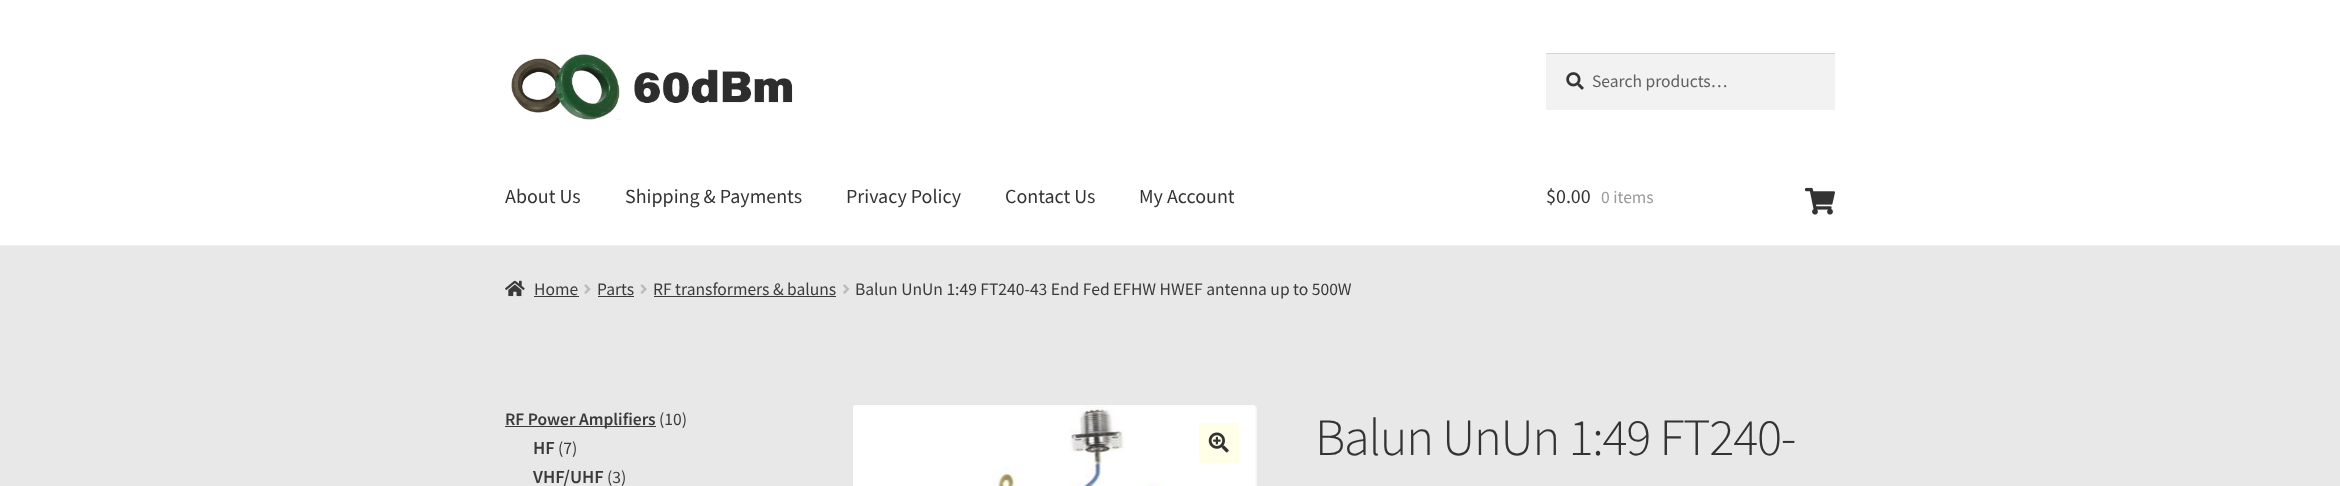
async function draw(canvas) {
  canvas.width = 2340
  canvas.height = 486
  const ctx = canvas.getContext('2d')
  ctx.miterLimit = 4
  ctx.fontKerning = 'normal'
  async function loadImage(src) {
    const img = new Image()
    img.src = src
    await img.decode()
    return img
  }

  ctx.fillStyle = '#e8e8e8'
  ctx.fillRect(0, 0, 2340, 486)
  ctx.fillStyle = '#fff'
  ctx.fillRect(0, 0, 2340, 245)
  ctx.fillStyle = '#f0f0f0'
  ctx.fillRect(0, 245, 2340, 1)
  ctx.drawImage(await loadImage('image0.png'), 511, 54, 282, 66)
  ctx.fillStyle = '#f2f2f2'
  ctx.fillRect(1546, 54, 289, 56)
  ctx.drawImage(await loadImage('image1.png'), 1566, 72, 18, 18)
  ctx.fillStyle = '#d4d4d4'
  ctx.fillRect(1546, 53, 289, 1)
  ctx.font = '17.5px Source Sans Pro'
  ctx.fillStyle = '#616161'
  ctx.fillText('Search products…', 1592, 87)
  ctx.font = '20px Source Sans Pro'
  ctx.fillStyle = '#333'
  ctx.fillText('About Us', 505, 203)
  ctx.fillText('Shipping & Payments', 625, 203)
  ctx.fillText('Privacy Policy', 846, 203)
  ctx.fillText('Contact Us', 1005, 203)
  ctx.fillText('My Account', 1139, 203)
  ctx.fillText('$0.00', 1546, 203)
  ctx.font = '17.5px Source Sans Pro'
  ctx.fillStyle = '#999'
  ctx.fillText('0 items', 1601, 203)
  ctx.drawImage(await loadImage('image2.png'), 1805, 187, 30, 28)
  ctx.drawImage(await loadImage('image3.png'), 505, 280, 20, 17)
  ctx.fillStyle = '#3a3a3a'
  ctx.fillText('Home', 534, 295)
  ctx.fillRect(534, 296, 45, 1)
  ctx.drawImage(await loadImage('image4.png'), 584, 284, 7, 10)
  ctx.fillText('Parts', 597, 295)
  ctx.fillRect(598, 296, 36, 1)
  ctx.drawImage(await loadImage('image5.png'), 640, 284, 7, 10)
  ctx.fillText('RF transformers & baluns', 653, 295)
  ctx.fillRect(654, 296, 182, 1)
  ctx.drawImage(await loadImage('image6.png'), 843, 284, 7, 10)
  ctx.fillText('Balun UnUn 1:49 FT240-43 End Fed EFHW HWEF antenna up to 500W', 855, 295)
  ctx.fillRect(505, 426, 151, 1)
  ctx.font = '600 17.5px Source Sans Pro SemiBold'
  ctx.fillText('RF Power Amplifiers', 505, 425)
  ctx.font = '17.5px Source Sans Pro'
  ctx.fillText('(10)', 659, 425)
  ctx.font = '600 18.5px Source Sans Pro SemiBold'
  ctx.fillText('HF', 533, 454)
  ctx.font = '17.5px Source Sans Pro'
  ctx.fillText('(7)', 558, 454)
  ctx.font = '600 18.5px Source Sans Pro SemiBold'
  ctx.fillText('VHF/UHF', 533, 483)
  ctx.font = '17.5px Source Sans Pro'
  ctx.fillText('(3)', 607, 483)
  ctx.drawImage(await loadImage('image7.png'), 853, 405, 404, 81)
  ctx.fillStyle = '#ffffe8'
  ctx.beginPath()
  ctx.roundRect(1199, 423, 40, 40, 4)
  ctx.fill()
  ctx.drawImage(await loadImage('image8.png'), 1208, 432, 21, 21)
  ctx.letterSpacing = '-1.25px'
  ctx.font = '300 52.4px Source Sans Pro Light'
  ctx.fillStyle = '#333'
  ctx.fillText('Balun UnUn 1:49 FT240-', 1315, 455)
}

draw(document.querySelector('canvas'))
